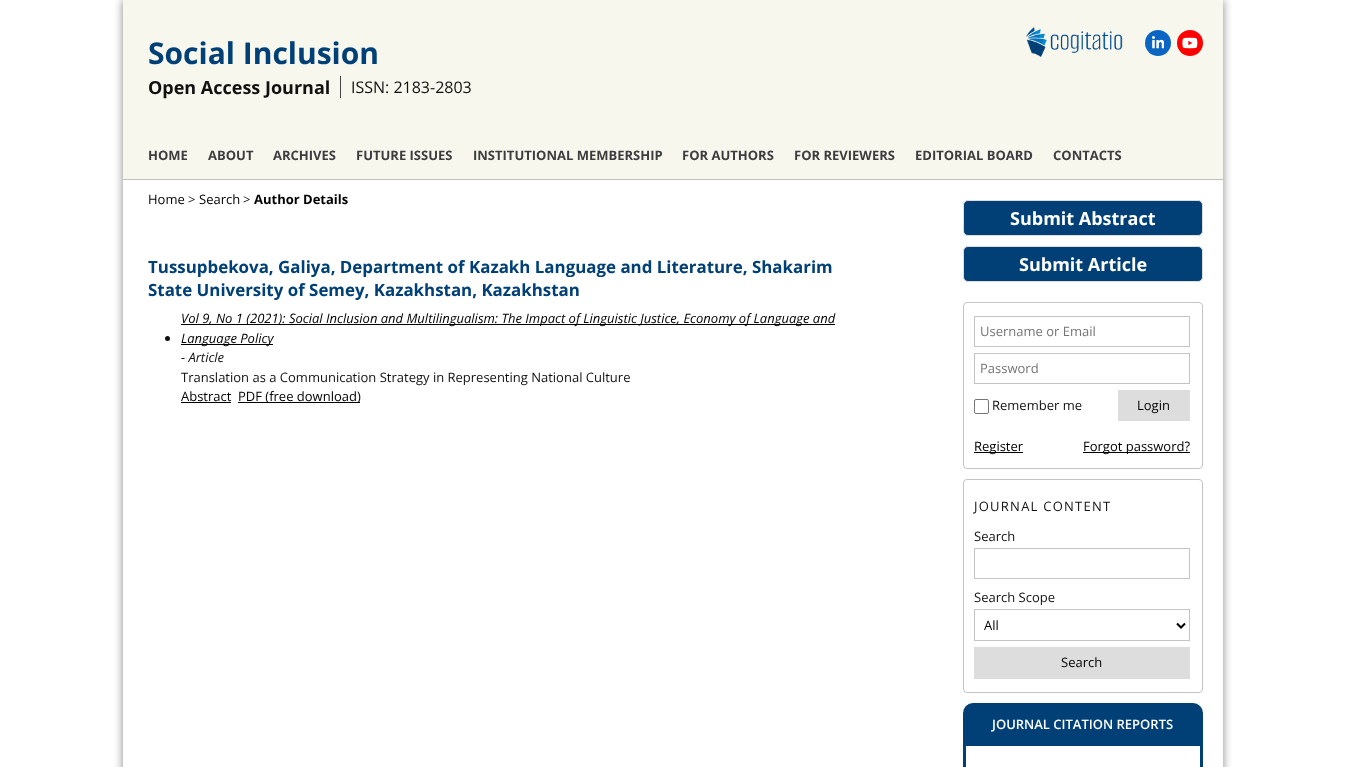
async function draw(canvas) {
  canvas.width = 1346
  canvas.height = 767
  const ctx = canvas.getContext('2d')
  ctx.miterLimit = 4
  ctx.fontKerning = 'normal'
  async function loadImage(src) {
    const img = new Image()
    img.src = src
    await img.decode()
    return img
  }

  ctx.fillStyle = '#fff'
  ctx.fillRect(0, 0, 1346, 767)
  ctx.save()
  ctx.beginPath()
  ctx.moveTo(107, 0)
  ctx.lineTo(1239, 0)
  ctx.lineTo(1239, 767)
  ctx.lineTo(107, 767)
  ctx.closePath()
  ctx.moveTo(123, 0)
  ctx.lineTo(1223, 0)
  ctx.lineTo(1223, 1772)
  ctx.lineTo(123, 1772)
  ctx.closePath()
  ctx.clip('evenodd')
  ctx.fillStyle = '#888'
  ctx.filter = 'blur(5px)'
  ctx.beginPath()
  ctx.rect(123, 0, 1100, 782)
  ctx.fill()
  ctx.filter = 'none'
  ctx.restore()
  ctx.fillStyle = '#f7f7ee'
  ctx.fillRect(123, 0, 1100, 179)
  ctx.fillStyle = '#c0c0c0'
  ctx.fillRect(123, 179, 1100, 1)
  ctx.font = 'bold 30px Open Sans'
  ctx.fillStyle = '#004077'
  ctx.fillText('Social Inclusion', 148, 64)
  ctx.drawImage(await loadImage('image0.png'), 1025, 27, 98, 30)
  ctx.fillStyle = '#0a66c2'
  ctx.beginPath()
  ctx.arc(1158, 43, 13, 0, 2 * Math.PI)
  ctx.fill()
  ctx.drawImage(await loadImage('image1.png'), 1152, 36, 12, 13)
  ctx.fillStyle = '#f00'
  ctx.beginPath()
  ctx.arc(1190, 43, 13, 0, 2 * Math.PI)
  ctx.fill()
  ctx.drawImage(await loadImage('image2.png'), 1182, 37, 16, 12)
  ctx.font = 'bold 18px Open Sans'
  ctx.fillStyle = '#111'
  ctx.fillText('Open Access Journal', 148, 94)
  ctx.fillStyle = '#444'
  ctx.fillRect(340, 76, 1, 22)
  ctx.font = '16px Open Sans'
  ctx.fillStyle = '#111'
  ctx.fillText('ISSN: 2183-2803', 351, 93)
  ctx.font = 'bold 13px Open Sans'
  ctx.fillStyle = '#3d3c3e'
  ctx.fillText('HOME', 148, 160)
  ctx.fillText('ABOUT', 208, 160)
  ctx.fillText('ARCHIVES', 273, 160)
  ctx.fillText('FUTURE ISSUES', 356, 160)
  ctx.fillText('INSTITUTIONAL MEMBERSHIP', 473, 160)
  ctx.fillText('FOR AUTHORS', 682, 160)
  ctx.fillText('FOR REVIEWERS', 794, 160)
  ctx.fillText('EDITORIAL BOARD', 915, 160)
  ctx.fillText('CONTACTS', 1053, 160)
  ctx.font = '13px Open Sans'
  ctx.fillStyle = '#000'
  ctx.fillText('Home', 148, 204)
  ctx.fillStyle = '#111'
  ctx.fillText('>', 188, 204)
  ctx.fillStyle = '#000'
  ctx.fillText('Search', 199, 204)
  ctx.fillStyle = '#111'
  ctx.fillText('>', 243, 204)
  ctx.font = 'bold 13px Open Sans'
  ctx.fillStyle = '#000'
  ctx.fillText('Author Details', 254, 204)
  ctx.font = 'bold 16.9px Open Sans'
  ctx.fillStyle = '#004077'
  ctx.fillText('Tussupbekova, Galiya, Department of Kazakh Language and Literature, Shakarim', 148, 273)
  ctx.fillText('State University of Semey, Kazakhstan, Kazakhstan', 148, 296)
  ctx.fillStyle = '#111'
  ctx.beginPath()
  ctx.arc(167.5, 338.5, 2.5, 0, 2 * Math.PI)
  ctx.fill()
  ctx.fillStyle = '#000'
  ctx.fillRect(181, 324, 654, 1)
  ctx.font = 'italic 13px Open Sans'
  ctx.fillText('Vol 9, No 1 (2021): Social Inclusion and Multilingualism: The Impact of Linguistic Justice, Economy of Language and', 181, 323)
  ctx.fillRect(181, 344, 92, 1)
  ctx.fillText('Language Policy', 181, 343)
  ctx.fillStyle = '#111'
  ctx.fillText('- Article', 181, 362)
  ctx.font = '13px Open Sans'
  ctx.fillText('Translation as a Communication Strategy in Representing National Culture', 181, 382)
  ctx.fillStyle = '#000'
  ctx.fillText('Abstract', 181, 401)
  ctx.fillRect(181, 402, 50, 1)
  ctx.fillRect(238, 402, 122, 1)
  ctx.fillText('PDF (free download)', 238, 401)
  ctx.fillStyle = '#004077'
  ctx.beginPath()
  ctx.roundRect(963.5, 200.5, 239, 35, 4.5)
  ctx.fill()
  ctx.strokeStyle = '#ddd'
  ctx.stroke()
  ctx.font = 'bold 18px Open Sans'
  ctx.fillStyle = '#fff'
  ctx.fillText('Submit Abstract', 1010, 225)
  ctx.fillStyle = '#004077'
  ctx.beginPath()
  ctx.roundRect(963.5, 246.5, 239, 35, 4.5)
  ctx.fill()
  ctx.stroke()
  ctx.fillStyle = '#fff'
  ctx.fillText('Submit Article', 1019, 271)
  ctx.beginPath()
  ctx.roundRect(963.5, 302.5, 239, 166, 3.5)
  ctx.strokeStyle = '#c4c4c4'
  ctx.stroke()
  ctx.strokeRect(974.5, 316.5, 215, 30)
  ctx.font = '13px Open Sans'
  ctx.fillStyle = '#757575'
  ctx.fillText('Username or Email', 980, 336)
  ctx.strokeRect(974.5, 353.5, 215, 30)
  ctx.fillText('Password', 980, 373)
  ctx.beginPath()
  ctx.roundRect(974.5, 399.5, 14, 14, 1.5)
  ctx.strokeStyle = '#767676'
  ctx.stroke()
  ctx.fillStyle = '#111'
  ctx.fillText('Remember me', 992, 410)
  ctx.fillStyle = '#ddd'
  ctx.fillRect(1118, 390, 72, 31)
  ctx.fillStyle = '#000'
  ctx.fillText('Login', 1137, 410)
  ctx.fillRect(974, 452, 49, 1)
  ctx.fillText('Register', 974, 451)
  ctx.fillRect(1083, 452, 107, 1)
  ctx.fillText('Forgot password?', 1083, 451)
  ctx.beginPath()
  ctx.roundRect(963.5, 479.5, 239, 213, 3.5)
  ctx.strokeStyle = '#c4c4c4'
  ctx.stroke()
  ctx.letterSpacing = '1.25px'
  ctx.fillStyle = '#111'
  ctx.fillText('JOURNAL CONTENT', 974, 511)
  ctx.letterSpacing = '0px'
  ctx.fillText('Search', 974, 541)
  ctx.strokeRect(974.5, 548.5, 215, 30)
  ctx.fillText('Search Scope', 974, 602)
  ctx.strokeRect(974.5, 609.5, 215, 31)
  ctx.beginPath()
  ctx.moveTo(1177, 623.5)
  ctx.lineTo(1181, 627.5)
  ctx.lineTo(1185, 623.5)
  ctx.strokeStyle = '#000'
  ctx.lineWidth = 2
  ctx.stroke()
  ctx.fillStyle = '#000'
  ctx.fillText('All', 984, 630)
  ctx.fillStyle = '#ddd'
  ctx.fillRect(974, 647, 216, 32)
  ctx.fillStyle = '#000'
  ctx.fillText('Search', 1061, 667)
  ctx.fillStyle = '#004077'
  ctx.beginPath()
  ctx.roundRect(963, 703, 240, 43, [10, 10, 0, 0])
  ctx.fill()
  ctx.font = '600 13px Open Sans'
  ctx.fillStyle = '#fff'
  ctx.fillText('JOURNAL CITATION REPORTS', 992, 729)
  ctx.fillStyle = '#004077'
  ctx.fillRect(1200, 746, 3, 21)
  ctx.fillRect(963, 746, 3, 21)
}

draw(document.querySelector('canvas'))
